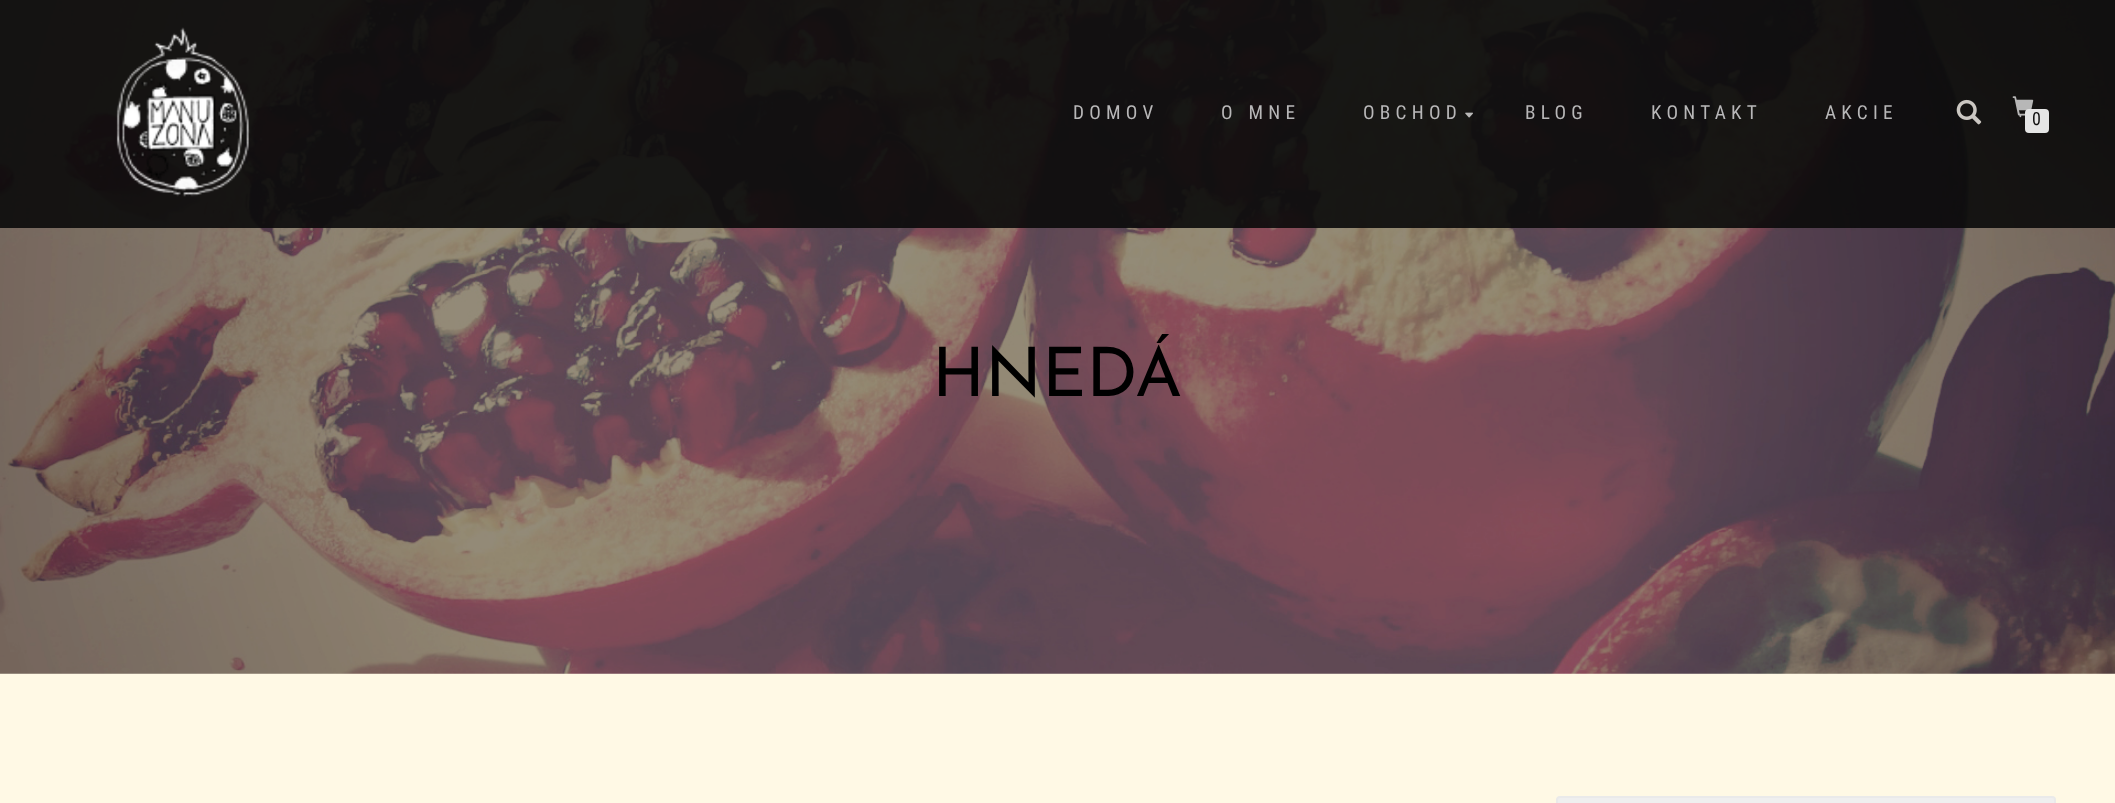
async function draw(canvas) {
  canvas.width = 2115
  canvas.height = 803
  const ctx = canvas.getContext('2d')
  ctx.miterLimit = 4
  ctx.fontKerning = 'normal'
  async function loadImage(src) {
    const img = new Image()
    img.src = src
    await img.decode()
    return img
  }

  ctx.fillStyle = '#fff9e5'
  ctx.fillRect(0, 0, 2115, 803)
  ctx.drawImage(await loadImage('image4.png'), 0, 0, 2115, 674)
  ctx.fillStyle = '#0a0a0ae6'
  ctx.fillRect(0, 0, 2115, 228)
  ctx.drawImage(await loadImage('image0.png'), 116, 27, 134, 170)
  ctx.letterSpacing = '5.25px'
  ctx.font = '19.25px Roboto Condensed'
  ctx.fillStyle = '#b8b7b8'
  ctx.fillText('DOMOV', 1073, 119)
  ctx.wordSpacing = '1px'
  ctx.fillText('O MNE', 1221, 119)
  ctx.wordSpacing = '0px'
  ctx.fillText('OBCHOD', 1363, 119)
  ctx.drawImage(await loadImage('image1.png'), 1465, 112, 8, 6)
  ctx.fillText('BLOG', 1525, 119)
  ctx.fillText('KONTAKT', 1651, 119)
  ctx.fillText('AKCIE', 1825, 119)
  ctx.drawImage(await loadImage('image2.png'), 1956, 99, 26, 26)
  ctx.drawImage(await loadImage('image3.png'), 2012, 96, 22, 22)
  ctx.fillStyle = '#e5e5e5'
  ctx.beginPath()
  ctx.roundRect(2025, 109, 24, 24, 4)
  ctx.fill()
  ctx.letterSpacing = '0px'
  ctx.font = '18px Roboto Condensed'
  ctx.fillStyle = '#111'
  ctx.fillText('0', 2032, 125)
  ctx.font = '100 68px Josefin Sans'
  ctx.fillStyle = '#000'
  ctx.fillText('HNEDÁ', 932, 396)
  ctx.fillStyle = '#efefef'
  ctx.beginPath()
  ctx.roundRect(1557, 797, 498, 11, 3)
  ctx.fill()
  ctx.strokeStyle = '#eaeaea'
  ctx.lineWidth = 2
  ctx.stroke()
}

draw(document.querySelector('canvas'))
